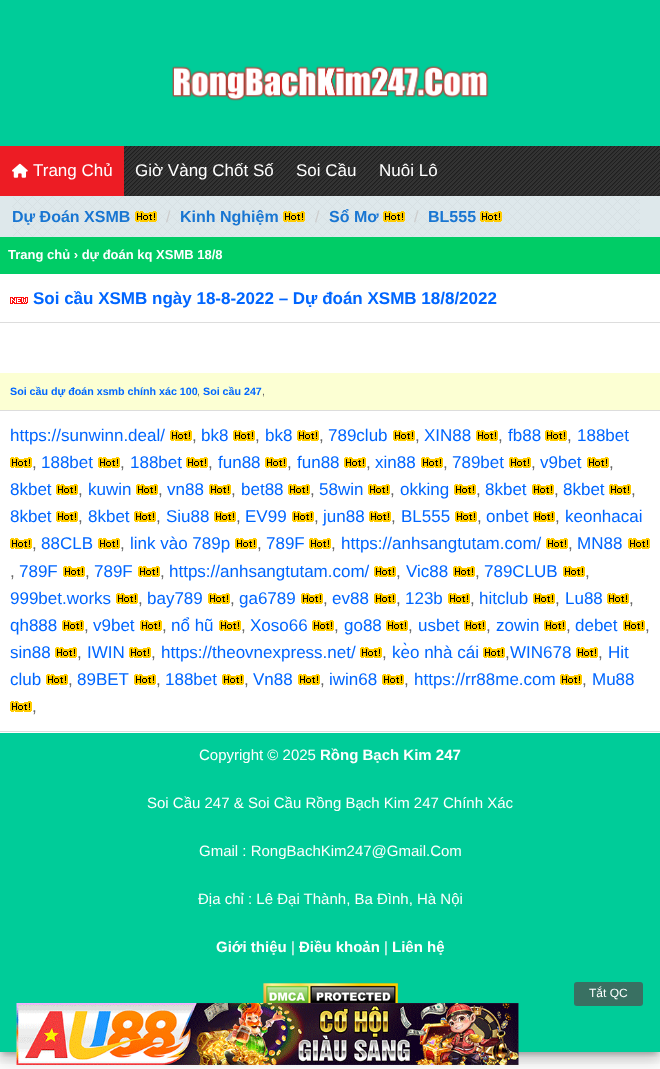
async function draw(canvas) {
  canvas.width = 660
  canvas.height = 1069
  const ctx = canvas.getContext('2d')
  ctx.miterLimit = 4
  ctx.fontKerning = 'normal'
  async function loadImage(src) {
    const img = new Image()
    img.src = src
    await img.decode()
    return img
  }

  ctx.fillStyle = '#fff'
  ctx.fillRect(0, 0, 660, 1069)
  ctx.save()
  ctx.beginPath()
  ctx.rect(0, 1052, 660, 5)
  ctx.clip()
  ctx.fillStyle = '#00000033'
  ctx.filter = 'blur(2.5px)'
  ctx.beginPath()
  ctx.rect(3, 8, 654, 1046)
  ctx.fill()
  ctx.filter = 'none'
  ctx.restore()
  ctx.save()
  ctx.beginPath()
  ctx.rect(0, 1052, 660, 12)
  ctx.clip()
  ctx.fillStyle = '#0000001f'
  ctx.filter = 'blur(7px)'
  ctx.beginPath()
  ctx.rect(-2, 1, 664, 1056)
  ctx.fill()
  ctx.filter = 'none'
  ctx.restore()
  ctx.save()
  ctx.beginPath()
  ctx.rect(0, 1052, 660, 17)
  ctx.clip()
  ctx.fillStyle = '#00000024'
  ctx.filter = 'blur(8.5px)'
  ctx.beginPath()
  ctx.rect(-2, 6, 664, 1056)
  ctx.fill()
  ctx.filter = 'none'
  ctx.restore()
  ctx.fillStyle = '#0c9'
  ctx.fillRect(0, 0, 660, 146)
  ctx.drawImage(await loadImage('image0.png'), 172, 65, 317, 36)
  ctx.drawImage(await loadImage('image1.png'), 124, 146, 536, 50)
  ctx.fillStyle = '#ed1c24'
  ctx.fillRect(0, 146, 124, 50)
  ctx.drawImage(await loadImage('image2.png'), 12, 163, 16, 15)
  ctx.font = '17px Liberation Sans'
  ctx.fillStyle = '#fff'
  ctx.fillText('Trang Chủ', 33, 176)
  ctx.fillText('Giờ Vàng Chốt Số', 135, 176)
  ctx.fillText('Soi Cầu', 296, 176)
  ctx.fillText('Nuôi Lô', 379, 176)
  ctx.fillStyle = '#dee8eb'
  ctx.fillRect(0, 196, 660, 41)
  ctx.drawImage(await loadImage('image3.png'), 12, 196, 628, 41)
  ctx.font = 'bold 16px Liberation Sans'
  ctx.fillStyle = '#1976d2'
  ctx.fillText('Dự Đoán XSMB', 12, 222)
  ctx.drawImage(await loadImage('image4.png'), 135, 211, 22, 11)
  ctx.font = '16px Liberation Sans'
  ctx.fillStyle = '#ccc'
  ctx.fillText('/', 166, 222)
  ctx.font = 'bold 16px Liberation Sans'
  ctx.fillStyle = '#1976d2'
  ctx.fillText('Kinh Nghiệm', 180, 222)
  ctx.drawImage(await loadImage('image5.png'), 283, 211, 22, 11)
  ctx.font = '16px Liberation Sans'
  ctx.fillStyle = '#ccc'
  ctx.fillText('/', 315, 222)
  ctx.font = 'bold 16px Liberation Sans'
  ctx.fillStyle = '#1976d2'
  ctx.fillText('Sổ Mơ', 329, 222)
  ctx.drawImage(await loadImage('image5.png'), 383, 211, 22, 11)
  ctx.font = '16px Liberation Sans'
  ctx.fillStyle = '#ccc'
  ctx.fillText('/', 414, 222)
  ctx.font = 'bold 16px Liberation Sans'
  ctx.fillStyle = '#1976d2'
  ctx.fillText('BL555', 428, 222)
  ctx.drawImage(await loadImage('image6.png'), 480, 211, 22, 11)
  ctx.fillStyle = '#0c6'
  ctx.fillRect(0, 237, 660, 37)
  ctx.font = 'bold 13px Liberation Sans'
  ctx.fillStyle = '#fff'
  ctx.fillText('Trang chủ › dự đoán kq XSMB 18/8', 8, 259)
  ctx.fillStyle = '#ddd'
  ctx.fillRect(0, 322, 660, 1)
  ctx.drawImage(await loadImage('image7.png'), 10, 297, 18, 7)
  ctx.font = 'bold 17px Liberation Sans'
  ctx.fillStyle = '#06f'
  ctx.fillText('Soi cầu XSMB ngày 18-8-2022 – Dự đoán XSMB 18/8/2022', 33, 304)
  ctx.fillStyle = '#fcffd3'
  ctx.fillRect(0, 373, 660, 37)
  ctx.fillStyle = '#ddd'
  ctx.fillRect(0, 410, 660, 1)
  ctx.font = 'bold 10.7px Liberation Sans'
  ctx.fillStyle = '#06f'
  ctx.fillText('Soi cầu dự đoán xsmb chính xác 100', 10, 395)
  ctx.font = '10.7px Liberation Sans'
  ctx.fillStyle = '#666'
  ctx.fillText(',', 197, 395)
  ctx.font = 'bold 10.7px Liberation Sans'
  ctx.fillStyle = '#06f'
  ctx.fillText('Soi cầu 247', 203, 395)
  ctx.font = '10.7px Liberation Sans'
  ctx.fillStyle = '#666'
  ctx.fillText(',', 262, 395)
  ctx.fillStyle = '#ddd'
  ctx.fillRect(0, 731, 660, 1)
  ctx.font = '17px Liberation Sans'
  ctx.fillStyle = '#06f'
  ctx.fillText('https://sunwinn.deal/', 10, 441)
  ctx.drawImage(await loadImage('image8.png'), 170, 430, 22, 11)
  ctx.fillText('bk8', 201, 441)
  ctx.drawImage(await loadImage('image8.png'), 233, 430, 22, 11)
  ctx.fillText('bk8', 265, 441)
  ctx.drawImage(await loadImage('image8.png'), 297, 430, 22, 11)
  ctx.fillText('789club', 328, 441)
  ctx.drawImage(await loadImage('image8.png'), 393, 430, 22, 11)
  ctx.fillText('XIN88', 424, 441)
  ctx.drawImage(await loadImage('image8.png'), 476, 430, 22, 11)
  ctx.fillText('fb88', 508, 441)
  ctx.drawImage(await loadImage('image8.png'), 545, 430, 22, 11)
  ctx.fillText('188bet', 577, 441)
  ctx.fillStyle = '#666'
  ctx.fillText(',', 192, 441)
  ctx.fillText(',', 255, 441)
  ctx.fillText(',', 319, 441)
  ctx.fillText(',', 415, 441)
  ctx.fillText(',', 498, 441)
  ctx.fillText(',', 567, 441)
  ctx.drawImage(await loadImage('image8.png'), 10, 457, 22, 11)
  ctx.fillStyle = '#06f'
  ctx.fillText('188bet', 41, 468)
  ctx.drawImage(await loadImage('image8.png'), 98, 457, 22, 11)
  ctx.fillText('188bet', 130, 468)
  ctx.drawImage(await loadImage('image8.png'), 186, 457, 22, 11)
  ctx.fillText('fun88', 218, 468)
  ctx.drawImage(await loadImage('image8.png'), 265, 457, 22, 11)
  ctx.fillText('fun88', 297, 468)
  ctx.drawImage(await loadImage('image8.png'), 344, 457, 22, 11)
  ctx.fillText('xin88', 375, 468)
  ctx.drawImage(await loadImage('image8.png'), 421, 457, 22, 11)
  ctx.fillText('789bet', 452, 468)
  ctx.drawImage(await loadImage('image8.png'), 509, 457, 22, 11)
  ctx.fillText('v9bet', 540, 468)
  ctx.drawImage(await loadImage('image8.png'), 587, 457, 22, 11)
  ctx.fillStyle = '#666'
  ctx.fillText(',', 32, 468)
  ctx.fillText(',', 120, 468)
  ctx.fillText(',', 208, 468)
  ctx.fillText(',', 287, 468)
  ctx.fillText(',', 366, 468)
  ctx.fillText(',', 443, 468)
  ctx.fillText(',', 531, 468)
  ctx.fillText(',', 609, 468)
  ctx.fillStyle = '#06f'
  ctx.fillText('8kbet', 10, 495)
  ctx.drawImage(await loadImage('image8.png'), 56, 484, 22, 11)
  ctx.fillText('kuwin', 88, 495)
  ctx.drawImage(await loadImage('image8.png'), 136, 484, 22, 11)
  ctx.fillText('vn88', 167, 495)
  ctx.drawImage(await loadImage('image8.png'), 209, 484, 22, 11)
  ctx.fillText('bet88', 241, 495)
  ctx.drawImage(await loadImage('image8.png'), 288, 484, 22, 11)
  ctx.fillText('58win', 319, 495)
  ctx.drawImage(await loadImage('image8.png'), 368, 484, 22, 11)
  ctx.fillText('okking', 400, 495)
  ctx.drawImage(await loadImage('image8.png'), 454, 484, 22, 11)
  ctx.fillText('8kbet', 485, 495)
  ctx.drawImage(await loadImage('image8.png'), 532, 484, 22, 11)
  ctx.fillText('8kbet', 563, 495)
  ctx.drawImage(await loadImage('image8.png'), 609, 484, 22, 11)
  ctx.fillStyle = '#666'
  ctx.fillText(',', 78, 495)
  ctx.fillText(',', 158, 495)
  ctx.fillText(',', 231, 495)
  ctx.fillText(',', 310, 495)
  ctx.fillText(',', 390, 495)
  ctx.fillText(',', 476, 495)
  ctx.fillText(',', 554, 495)
  ctx.fillText(',', 631, 495)
  ctx.fillStyle = '#06f'
  ctx.fillText('8kbet', 10, 522)
  ctx.drawImage(await loadImage('image8.png'), 56, 511, 22, 11)
  ctx.fillText('8kbet', 88, 522)
  ctx.drawImage(await loadImage('image8.png'), 134, 511, 22, 11)
  ctx.fillText('Siu88', 166, 522)
  ctx.drawImage(await loadImage('image8.png'), 214, 511, 22, 11)
  ctx.fillText('EV99', 245, 522)
  ctx.drawImage(await loadImage('image8.png'), 292, 511, 22, 11)
  ctx.fillText('jun88', 323, 522)
  ctx.drawImage(await loadImage('image8.png'), 369, 511, 22, 11)
  ctx.fillText('BL555', 401, 522)
  ctx.drawImage(await loadImage('image8.png'), 455, 511, 22, 11)
  ctx.fillText('onbet', 486, 522)
  ctx.drawImage(await loadImage('image8.png'), 533, 511, 22, 11)
  ctx.fillText('keonhacai', 565, 522)
  ctx.fillStyle = '#666'
  ctx.fillText(',', 78, 522)
  ctx.fillText(',', 156, 522)
  ctx.fillText(',', 236, 522)
  ctx.fillText(',', 314, 522)
  ctx.fillText(',', 391, 522)
  ctx.fillText(',', 477, 522)
  ctx.fillText(',', 555, 522)
  ctx.drawImage(await loadImage('image8.png'), 10, 538, 22, 11)
  ctx.fillStyle = '#06f'
  ctx.fillText('88CLB', 41, 549)
  ctx.drawImage(await loadImage('image8.png'), 98, 538, 22, 11)
  ctx.fillText('link vào 789p', 130, 549)
  ctx.drawImage(await loadImage('image8.png'), 235, 538, 22, 11)
  ctx.fillText('789F', 266, 549)
  ctx.drawImage(await loadImage('image8.png'), 309, 538, 22, 11)
  ctx.fillText('https://anhsangtutam.com/', 341, 549)
  ctx.drawImage(await loadImage('image8.png'), 546, 538, 22, 11)
  ctx.fillText('MN88', 577, 549)
  ctx.drawImage(await loadImage('image8.png'), 628, 538, 22, 11)
  ctx.fillStyle = '#666'
  ctx.fillText(',', 32, 549)
  ctx.fillText(',', 120, 549)
  ctx.fillText(',', 257, 549)
  ctx.fillText(',', 331, 549)
  ctx.fillText(',', 568, 549)
  ctx.fillStyle = '#06f'
  ctx.fillText('789F', 19, 577)
  ctx.drawImage(await loadImage('image8.png'), 63, 566, 22, 11)
  ctx.fillText('789F', 94, 577)
  ctx.drawImage(await loadImage('image8.png'), 138, 566, 22, 11)
  ctx.fillText('https://anhsangtutam.com/', 169, 577)
  ctx.drawImage(await loadImage('image8.png'), 374, 566, 22, 11)
  ctx.fillText('Vic88', 406, 577)
  ctx.drawImage(await loadImage('image8.png'), 453, 566, 22, 11)
  ctx.fillText('789CLUB', 484, 577)
  ctx.drawImage(await loadImage('image8.png'), 563, 566, 22, 11)
  ctx.fillStyle = '#666'
  ctx.fillText(',', 10, 577)
  ctx.fillText(',', 85, 577)
  ctx.fillText(',', 160, 577)
  ctx.fillText(',', 396, 577)
  ctx.fillText(',', 475, 577)
  ctx.fillText(',', 585, 577)
  ctx.fillStyle = '#06f'
  ctx.fillText('999bet.works', 10, 604)
  ctx.drawImage(await loadImage('image8.png'), 116, 593, 22, 11)
  ctx.fillText('bay789', 147, 604)
  ctx.drawImage(await loadImage('image8.png'), 208, 593, 22, 11)
  ctx.fillText('ga6789', 239, 604)
  ctx.drawImage(await loadImage('image8.png'), 301, 593, 22, 11)
  ctx.fillText('ev88', 332, 604)
  ctx.drawImage(await loadImage('image8.png'), 374, 593, 22, 11)
  ctx.fillText('123b', 405, 604)
  ctx.drawImage(await loadImage('image8.png'), 448, 593, 22, 11)
  ctx.fillText('hitclub', 479, 604)
  ctx.drawImage(await loadImage('image8.png'), 533, 593, 22, 11)
  ctx.fillText('Lu88', 565, 604)
  ctx.drawImage(await loadImage('image8.png'), 607, 593, 22, 11)
  ctx.fillStyle = '#666'
  ctx.fillText(',', 138, 604)
  ctx.fillText(',', 230, 604)
  ctx.fillText(',', 323, 604)
  ctx.fillText(',', 396, 604)
  ctx.fillText(',', 470, 604)
  ctx.fillText(',', 555, 604)
  ctx.fillText(',', 629, 604)
  ctx.fillStyle = '#06f'
  ctx.fillText('qh888', 10, 631)
  ctx.drawImage(await loadImage('image8.png'), 62, 620, 22, 11)
  ctx.fillText('v9bet', 93, 631)
  ctx.drawImage(await loadImage('image8.png'), 140, 620, 22, 11)
  ctx.fillText('nổ hũ', 171, 631)
  ctx.drawImage(await loadImage('image8.png'), 219, 620, 22, 11)
  ctx.fillText('Xoso66', 250, 631)
  ctx.drawImage(await loadImage('image8.png'), 312, 620, 22, 11)
  ctx.fillText('go88', 344, 631)
  ctx.drawImage(await loadImage('image8.png'), 386, 620, 22, 11)
  ctx.fillText('usbet', 418, 631)
  ctx.drawImage(await loadImage('image8.png'), 464, 620, 22, 11)
  ctx.fillText('zowin', 496, 631)
  ctx.drawImage(await loadImage('image8.png'), 544, 620, 22, 11)
  ctx.fillText('debet', 575, 631)
  ctx.drawImage(await loadImage('image8.png'), 623, 620, 22, 11)
  ctx.fillStyle = '#666'
  ctx.fillText(',', 84, 631)
  ctx.fillText(',', 162, 631)
  ctx.fillText(',', 241, 631)
  ctx.fillText(',', 334, 631)
  ctx.fillText(',', 408, 631)
  ctx.fillText(',', 486, 631)
  ctx.fillText(',', 566, 631)
  ctx.fillText(',', 645, 631)
  ctx.fillStyle = '#06f'
  ctx.fillText('sin88', 10, 658)
  ctx.drawImage(await loadImage('image8.png'), 55, 647, 22, 11)
  ctx.fillText('IWIN', 87, 658)
  ctx.drawImage(await loadImage('image8.png'), 129, 647, 22, 11)
  ctx.fillText('https://theovnexpress.net/', 161, 658)
  ctx.drawImage(await loadImage('image8.png'), 360, 647, 22, 11)
  ctx.fillText('kèo nhà cái', 392, 658)
  ctx.drawImage(await loadImage('image8.png'), 483, 647, 22, 11)
  ctx.fillText('WIN678', 510, 658)
  ctx.drawImage(await loadImage('image8.png'), 576, 647, 22, 11)
  ctx.fillText('Hit', 608, 658)
  ctx.fillStyle = '#666'
  ctx.fillText(',', 77, 658)
  ctx.fillText(',', 151, 658)
  ctx.fillText(',', 382, 658)
  ctx.fillText(',', 505, 658)
  ctx.fillText(',', 598, 658)
  ctx.fillStyle = '#06f'
  ctx.fillText('club', 10, 685)
  ctx.drawImage(await loadImage('image8.png'), 46, 674, 22, 11)
  ctx.fillText('89BET', 77, 685)
  ctx.drawImage(await loadImage('image8.png'), 134, 674, 22, 11)
  ctx.fillText('188bet', 165, 685)
  ctx.drawImage(await loadImage('image8.png'), 222, 674, 22, 11)
  ctx.fillText('Vn88', 253, 685)
  ctx.drawImage(await loadImage('image8.png'), 298, 674, 22, 11)
  ctx.fillText('iwin68', 329, 685)
  ctx.drawImage(await loadImage('image8.png'), 382, 674, 22, 11)
  ctx.fillText('https://rr88me.com', 414, 685)
  ctx.drawImage(await loadImage('image8.png'), 560, 674, 22, 11)
  ctx.fillText('Mu88', 592, 685)
  ctx.fillStyle = '#666'
  ctx.fillText(',', 68, 685)
  ctx.fillText(',', 156, 685)
  ctx.fillText(',', 244, 685)
  ctx.fillText(',', 320, 685)
  ctx.fillText(',', 404, 685)
  ctx.fillText(',', 582, 685)
  ctx.drawImage(await loadImage('image8.png'), 10, 701, 22, 11)
  ctx.fillText(',', 32, 712)
  ctx.fillStyle = '#0c9'
  ctx.fillRect(0, 733, 660, 319)
  ctx.font = '15px Liberation Sans'
  ctx.fillStyle = '#fff'
  ctx.fillText('Copyright © 2025', 199, 760)
  ctx.font = 'bold 15px Liberation Sans'
  ctx.fillText('Rồng Bạch Kim 247', 320, 760)
  ctx.font = '15px Liberation Sans'
  ctx.fillText('Soi Cầu 247 & Soi Cầu Rồng Bạch Kim 247 Chính Xác', 147, 808)
  ctx.fillText('Gmail : RongBachKim247@Gmail.Com', 199, 856)
  ctx.fillText('Địa chỉ : Lê Đại Thành, Ba Đình, Hà Nội', 198, 904)
  ctx.font = 'bold 15px Liberation Sans'
  ctx.fillText('Giới thiệu', 216, 952)
  ctx.font = '15px Liberation Sans'
  ctx.fillText('|', 291, 952)
  ctx.font = 'bold 15px Liberation Sans'
  ctx.fillText('Điều khoản', 299, 952)
  ctx.font = '15px Liberation Sans'
  ctx.fillText('|', 384, 952)
  ctx.font = 'bold 15px Liberation Sans'
  ctx.fillText('Liên hệ', 392, 952)
  ctx.drawImage(await loadImage('image9.png'), 263, 983, 135, 20)
  ctx.fillStyle = '#397062'
  ctx.beginPath()
  ctx.roundRect(574, 982, 69, 24, 3)
  ctx.fill()
  ctx.font = '12px Liberation Sans'
  ctx.fillStyle = '#fff'
  ctx.fillText('Tắt QC', 589, 997)
  ctx.drawImage(await loadImage('image10.png'), 16, 1003, 503, 62)
}

draw(document.querySelector('canvas'))
